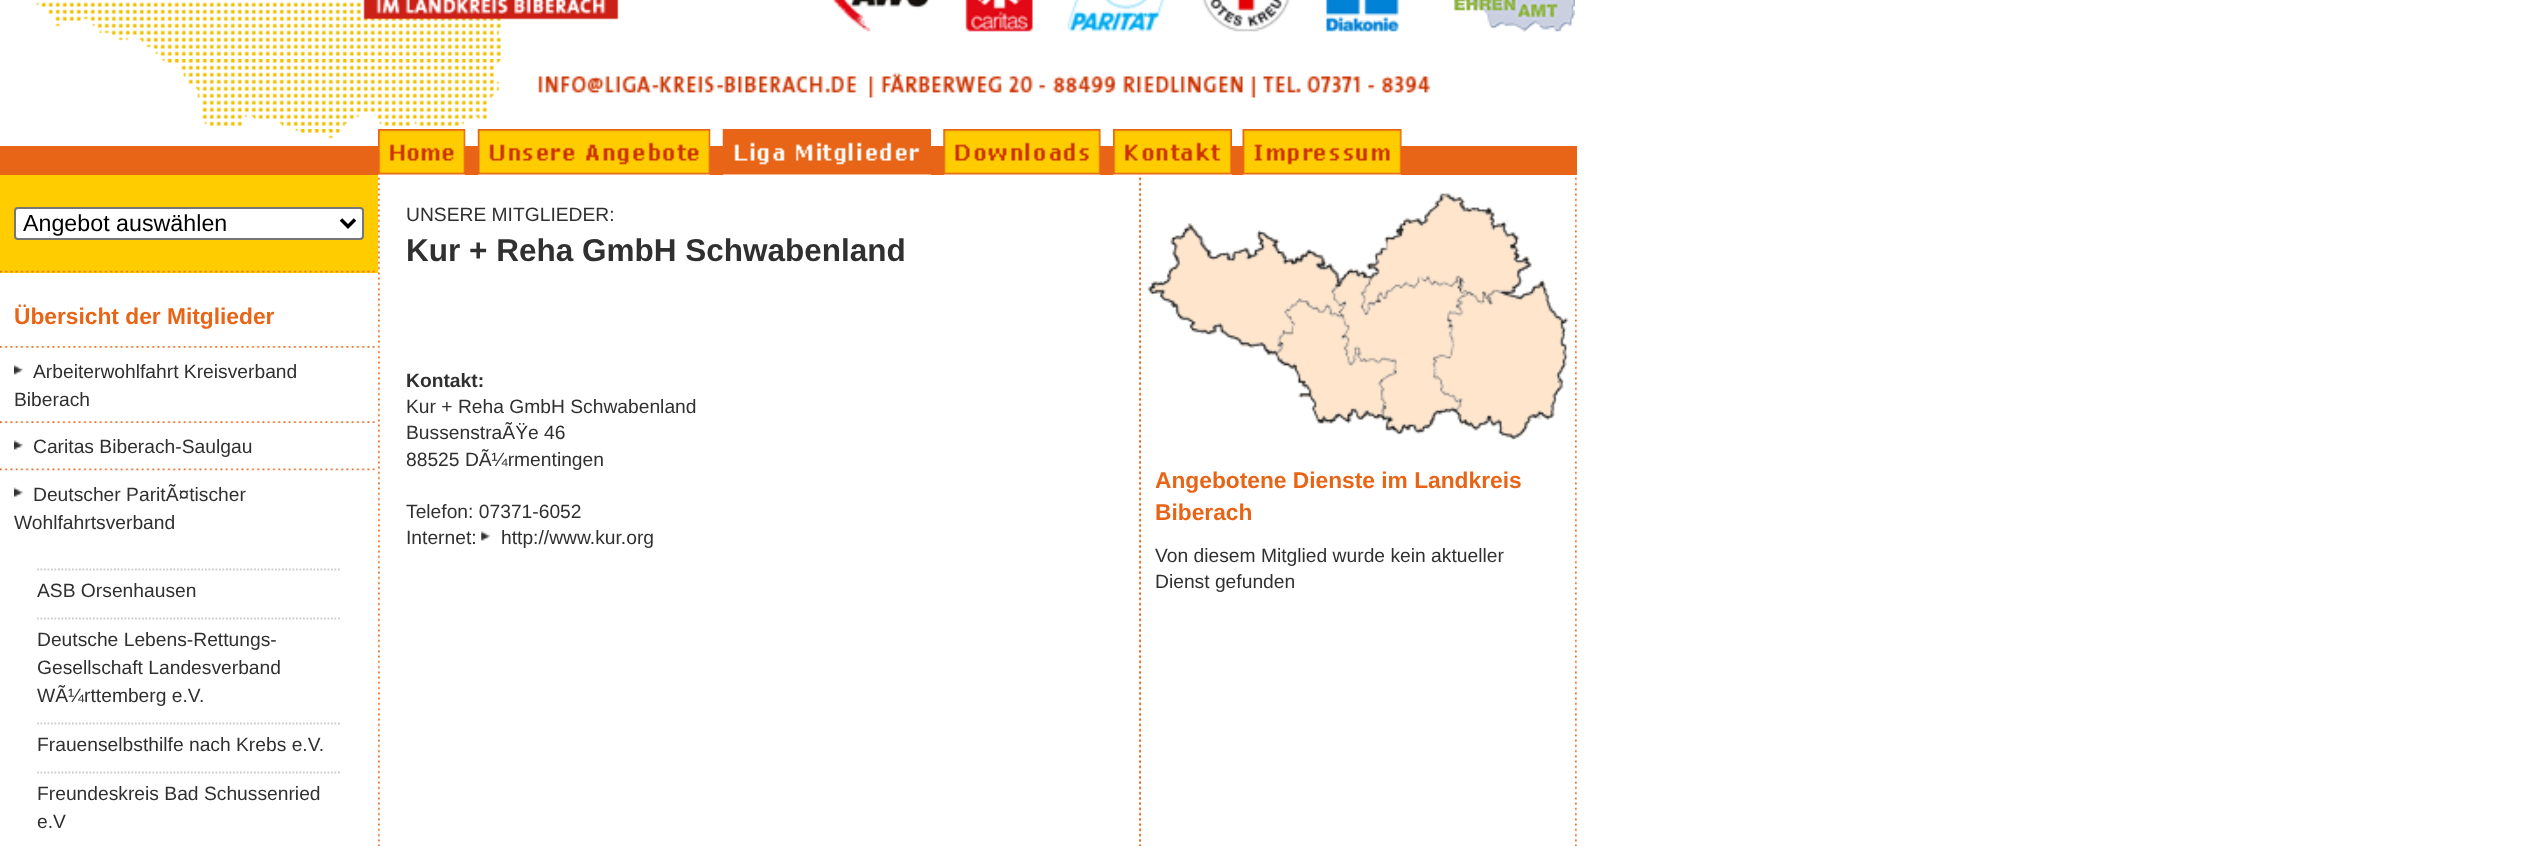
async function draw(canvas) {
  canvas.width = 2542
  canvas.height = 846
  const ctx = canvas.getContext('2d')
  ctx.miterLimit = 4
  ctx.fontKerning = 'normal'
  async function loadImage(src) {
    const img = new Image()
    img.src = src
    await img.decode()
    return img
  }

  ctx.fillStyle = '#fff'
  ctx.fillRect(0, 0, 2542, 846)
  ctx.drawImage(await loadImage('image0.png'), 36, 0, 583, 56)
  ctx.drawImage(await loadImage('image1.png'), 832, 0, 98, 32)
  ctx.drawImage(await loadImage('image2.png'), 965, 0, 68, 32)
  ctx.drawImage(await loadImage('image3.png'), 1067, 0, 98, 32)
  ctx.drawImage(await loadImage('image4.png'), 1202, 0, 88, 32)
  ctx.drawImage(await loadImage('image5.png'), 1326, 0, 73, 32)
  ctx.drawImage(await loadImage('image6.png'), 1453, 0, 122, 32)
  ctx.drawImage(await loadImage('image7.png'), 162, 59, 339, 67)
  ctx.drawImage(await loadImage('image8.png'), 538, 72, 893, 26)
  ctx.drawImage(await loadImage('image9.png'), 295, 129, 45, 10)
  ctx.drawImage(await loadImage('image25.png'), 378, 174, 2, 672)
  ctx.drawImage(await loadImage('image10.png'), 378, 129, 88, 46)
  ctx.drawImage(await loadImage('image11.png'), 465, 129, 1, 17)
  ctx.drawImage(await loadImage('image12.png'), 477, 129, 234, 46)
  ctx.drawImage(await loadImage('image11.png'), 710, 129, 1, 17)
  ctx.drawImage(await loadImage('image13.png'), 722, 129, 209, 46)
  ctx.drawImage(await loadImage('image14.png'), 943, 129, 158, 46)
  ctx.drawImage(await loadImage('image15.png'), 1100, 129, 1, 17)
  ctx.drawImage(await loadImage('image27.png'), 1139, 174, 2, 672)
  ctx.drawImage(await loadImage('image16.png'), 1113, 129, 119, 46)
  ctx.drawImage(await loadImage('image17.png'), 1242, 129, 160, 46)
  ctx.drawImage(await loadImage('image15.png'), 1401, 129, 1, 17)
  ctx.fillStyle = '#e86517'
  ctx.fillRect(0, 146, 378, 29)
  ctx.fillRect(465, 146, 13, 29)
  ctx.fillRect(710, 146, 13, 29)
  ctx.fillRect(931, 146, 13, 29)
  ctx.fillRect(1100, 146, 13, 29)
  ctx.fillRect(1232, 146, 11, 29)
  ctx.fillRect(1401, 146, 176, 29)
  ctx.fillStyle = '#fc0'
  ctx.fillRect(0, 175, 378, 98)
  ctx.fillStyle = '#fff'
  ctx.beginPath()
  ctx.roundRect(15, 208, 348, 31, 3)
  ctx.fill()
  ctx.strokeStyle = '#767676'
  ctx.lineWidth = 2
  ctx.stroke()
  ctx.beginPath()
  ctx.moveTo(341, 219.5)
  ctx.lineTo(348, 226.5)
  ctx.lineTo(355, 219.5)
  ctx.strokeStyle = '#000'
  ctx.lineWidth = 3.5
  ctx.stroke()
  ctx.font = '23.25px Liberation Sans'
  ctx.fillStyle = '#000'
  ctx.fillText('Angebot auswählen', 23, 231)
  ctx.drawImage(await loadImage('image18.png'), 0, 270, 375, 3)
  ctx.font = 'bold 22.75px Liberation Sans'
  ctx.fillStyle = '#e86517'
  ctx.fillText('Übersicht der Mitglieder', 14, 324)
  ctx.drawImage(await loadImage('image19.png'), 0, 346, 375, 2)
  ctx.drawImage(await loadImage('image20.png'), 14, 364, 10, 11)
  ctx.font = '19.25px Liberation Sans'
  ctx.fillStyle = '#303030'
  ctx.fillText('Arbeiterwohlfahrt Kreisverband', 33, 378)
  ctx.fillText('Biberach', 14, 406)
  ctx.drawImage(await loadImage('image21.png'), 0, 421, 375, 2)
  ctx.drawImage(await loadImage('image22.png'), 14, 440, 10, 10)
  ctx.fillText('Caritas Biberach-Saulgau', 33, 453)
  ctx.drawImage(await loadImage('image23.png'), 0, 468, 375, 3)
  ctx.drawImage(await loadImage('image24.png'), 14, 487, 10, 10)
  ctx.fillText('Deutscher ParitÃ¤tischer', 33, 501)
  ctx.fillText('Wohlfahrtsverband', 14, 529)
  ctx.beginPath()
  ctx.moveTo(37, 569.5)
  ctx.lineTo(341, 569.5)
  ctx.strokeStyle = '#ccc'
  ctx.lineWidth = 1.8
  ctx.setLineDash([1.75, 1.75])
  ctx.stroke()
  ctx.fillText('ASB Orsenhausen', 37, 597)
  ctx.beginPath()
  ctx.moveTo(37, 618.5)
  ctx.lineTo(341, 618.5)
  ctx.stroke()
  ctx.fillText('Deutsche Lebens-Rettungs-', 37, 646)
  ctx.fillText('Gesellschaft Landesverband', 37, 674)
  ctx.fillText('WÃ¼rttemberg e.V.', 37, 702)
  ctx.beginPath()
  ctx.moveTo(37, 723.5)
  ctx.lineTo(341, 723.5)
  ctx.stroke()
  ctx.fillText('Frauenselbsthilfe nach Krebs e.V.', 37, 751)
  ctx.beginPath()
  ctx.moveTo(37, 772.5)
  ctx.lineTo(341, 772.5)
  ctx.stroke()
  ctx.fillText('Freundeskreis Bad Schussenried', 37, 800)
  ctx.fillText('e.V', 37, 828)
  ctx.fillText('UNSERE MITGLIEDER:', 406, 221)
  ctx.font = 'bold 31.5px Liberation Sans'
  ctx.fillText('Kur + Reha GmbH Schwabenland', 406, 261)
  ctx.font = 'bold 19.25px Liberation Sans'
  ctx.fillText('Kontakt:', 406, 387)
  ctx.font = '19.25px Liberation Sans'
  ctx.fillText('Kur + Reha GmbH Schwabenland', 406, 413)
  ctx.fillText('BussenstraÃŸe 46', 406, 439)
  ctx.fillText('88525 DÃ¼rmentingen', 406, 466)
  ctx.fillText('Telefon: 07371-6052', 406, 518)
  ctx.fillText('Internet:', 406, 544)
  ctx.drawImage(await loadImage('image26.png'), 481, 531, 10, 10)
  ctx.fillText('http://www.kur.org', 501, 544)
  ctx.drawImage(await loadImage('image28.png'), 1139, 177, 2, 669)
  ctx.drawImage(await loadImage('image29.png'), 1147, 193, 422, 247)
  ctx.font = 'bold 22.75px Liberation Sans'
  ctx.fillStyle = '#e86517'
  ctx.fillText('Angebotene Dienste im Landkreis', 1155, 488)
  ctx.fillText('Biberach', 1155, 520)
  ctx.font = '19.25px Liberation Sans'
  ctx.fillStyle = '#303030'
  ctx.fillText('Von diesem Mitglied wurde kein aktueller', 1155, 562)
  ctx.fillText('Dienst gefunden', 1155, 588)
  ctx.drawImage(await loadImage('image30.png'), 1575, 177, 2, 669)
}

draw(document.querySelector('canvas'))
